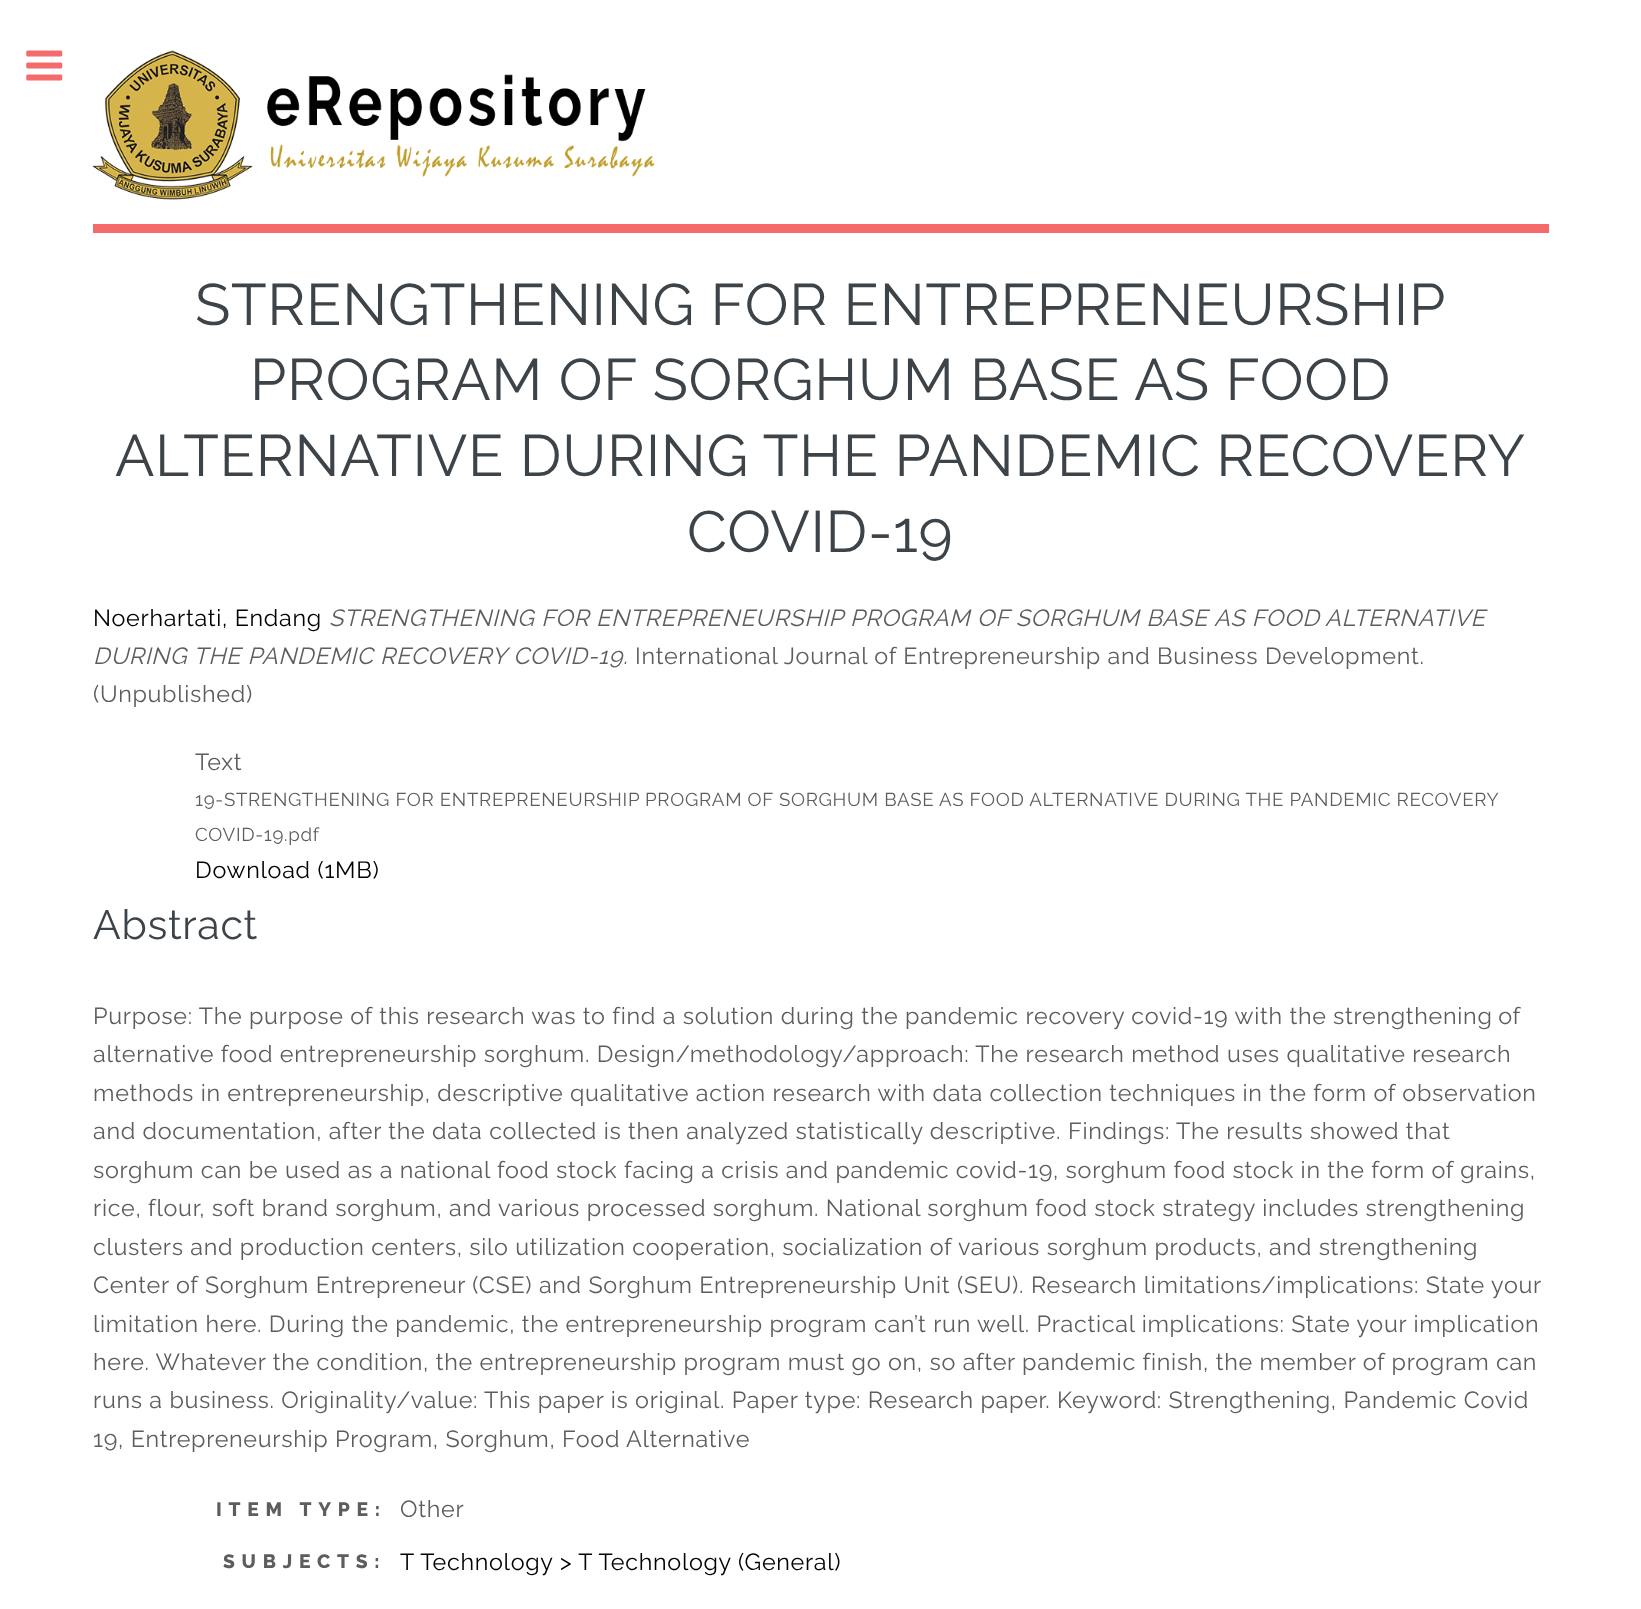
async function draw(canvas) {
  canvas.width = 1641
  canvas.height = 1609
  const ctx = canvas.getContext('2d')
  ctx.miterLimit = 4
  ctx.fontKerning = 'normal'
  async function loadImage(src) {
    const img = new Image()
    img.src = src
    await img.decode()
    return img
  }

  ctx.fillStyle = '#fff'
  ctx.fillRect(0, 0, 1641, 1609)
  ctx.drawImage(await loadImage('image0.png'), 26, 50, 37, 31)
  ctx.fillStyle = '#f56a6a'
  ctx.fillRect(93, 224, 1456, 9)
  ctx.drawImage(await loadImage('image1.png'), 92, 50, 563, 150)
  ctx.letterSpacing = '0.7px'
  ctx.font = '58.3px Raleway'
  ctx.fillStyle = '#3d4449'
  ctx.fillText('STRENGTHENING FOR ENTREPRENEURSHIP', 195, 325)
  ctx.fillText('PROGRAM OF SORGHUM BASE AS FOOD', 250, 400)
  ctx.fillText('ALTERNATIVE DURING THE PANDEMIC RECOVERY', 115, 476)
  ctx.fillText('COVID-19', 687, 552)
  ctx.font = '23.33px Raleway'
  ctx.fillStyle = '#000'
  ctx.fillText('Noerhartati, Endang', 93, 626)
  ctx.font = 'italic 23.33px Raleway'
  ctx.fillStyle = '#5d5d5d'
  ctx.fillText('STRENGTHENING FOR ENTREPRENEURSHIP', 329, 626)
  ctx.fillText('PROGRAM OF SORGHUM BASE AS FOOD', 850, 626)
  ctx.fillText('ALTERNATIVE', 1325, 626)
  ctx.fillText('DURING THE PANDEMIC RECOVERY COVID-19.', 93, 664)
  ctx.font = '23.33px Raleway'
  ctx.fillText('International Journal of Entrepreneurship and Business Development.', 635, 664)
  ctx.fillText('(Unpublished)', 93, 702)
  ctx.fillText('Text', 195, 770)
  ctx.wordSpacing = '-0.1px'
  ctx.font = '18.67px Raleway'
  ctx.fillText('19-STRENGTHENING FOR ENTREPRENEURSHIP PROGRAM OF SORGHUM BASE AS FOOD ALTERNATIVE DURING THE PANDEMIC RECOVERY', 195, 806)
  ctx.wordSpacing = '0px'
  ctx.fillText('COVID-19.pdf', 195, 841)
  ctx.font = '23.33px Raleway'
  ctx.fillStyle = '#000'
  ctx.fillText('Download (1MB)', 195, 878)
  ctx.font = '41px Raleway'
  ctx.fillStyle = '#3d4449'
  ctx.fillText('Abstract', 93, 939)
  ctx.font = '23.33px Raleway'
  ctx.fillStyle = '#5d5d5d'
  ctx.fillText('Purpose: The purpose of this research was to find a solution during the pandemic recovery covid-19 with the', 93, 1024)
  ctx.wordSpacing = '-1px'
  ctx.fillText('strengthening of', 1333, 1024)
  ctx.wordSpacing = '0px'
  ctx.fillText('alternative food entrepreneurship sorghum. Design/methodology/approach: The research method uses qualitative research', 93, 1062)
  ctx.fillText('methods in entrepreneurship, descriptive qualitative action research with data collection techniques in the form of observation', 93, 1101)
  ctx.fillText('and documentation, after the data collected is then analyzed statistically descriptive.', 93, 1139)
  ctx.fillText('Findings: The results showed that', 1068, 1139)
  ctx.fillText('sorghum can be used as a national food stock facing a crisis and pandemic covid-19, sorghum food stock in the form of grains,', 93, 1178)
  ctx.fillText('rice, flour, soft brand sorghum, and various processed sorghum. National sorghum food stock strategy includes strengthening', 93, 1216)
  ctx.fillText('clusters and production centers, silo utilization cooperation, socialization of various sorghum products, and strengthening', 93, 1255)
  ctx.fillText('Center of Sorghum Entrepreneur (CSE) and Sorghum Entrepreneurship Unit (SEU).', 93, 1293)
  ctx.fillText('Research limitations/implications: State your', 1031, 1293)
  ctx.fillText('limitation here. During the pandemic, the entrepreneurship program can’t run well. Practical implications: State your implication', 93, 1332)
  ctx.fillText('here. Whatever the condition, the entrepreneurship program must go on, so after pandemic finish, the member of program can', 93, 1370)
  ctx.fillText('runs a business. Originality/value: This paper is original. Paper type: Research paper. Keyword: Strengthening, Pandemic Covid', 93, 1408)
  ctx.fillText('19, Entrepreneurship Program, Sorghum, Food Alternative', 93, 1447)
  ctx.letterSpacing = '6.75px'
  ctx.font = '800 19.25px Raleway'
  ctx.fillText('ITEM TYPE:', 216, 1516)
  ctx.letterSpacing = '0.7px'
  ctx.font = '23.33px Raleway'
  ctx.fillText('Other', 400, 1517)
  ctx.letterSpacing = '6.75px'
  ctx.font = '800 19.25px Raleway'
  ctx.fillText('SUBJECTS:', 223, 1568)
  ctx.letterSpacing = '0.7px'
  ctx.font = '23.33px Raleway'
  ctx.fillStyle = '#000'
  ctx.fillText('T Technology > T Technology (General)', 400, 1570)
}

draw(document.querySelector('canvas'))
